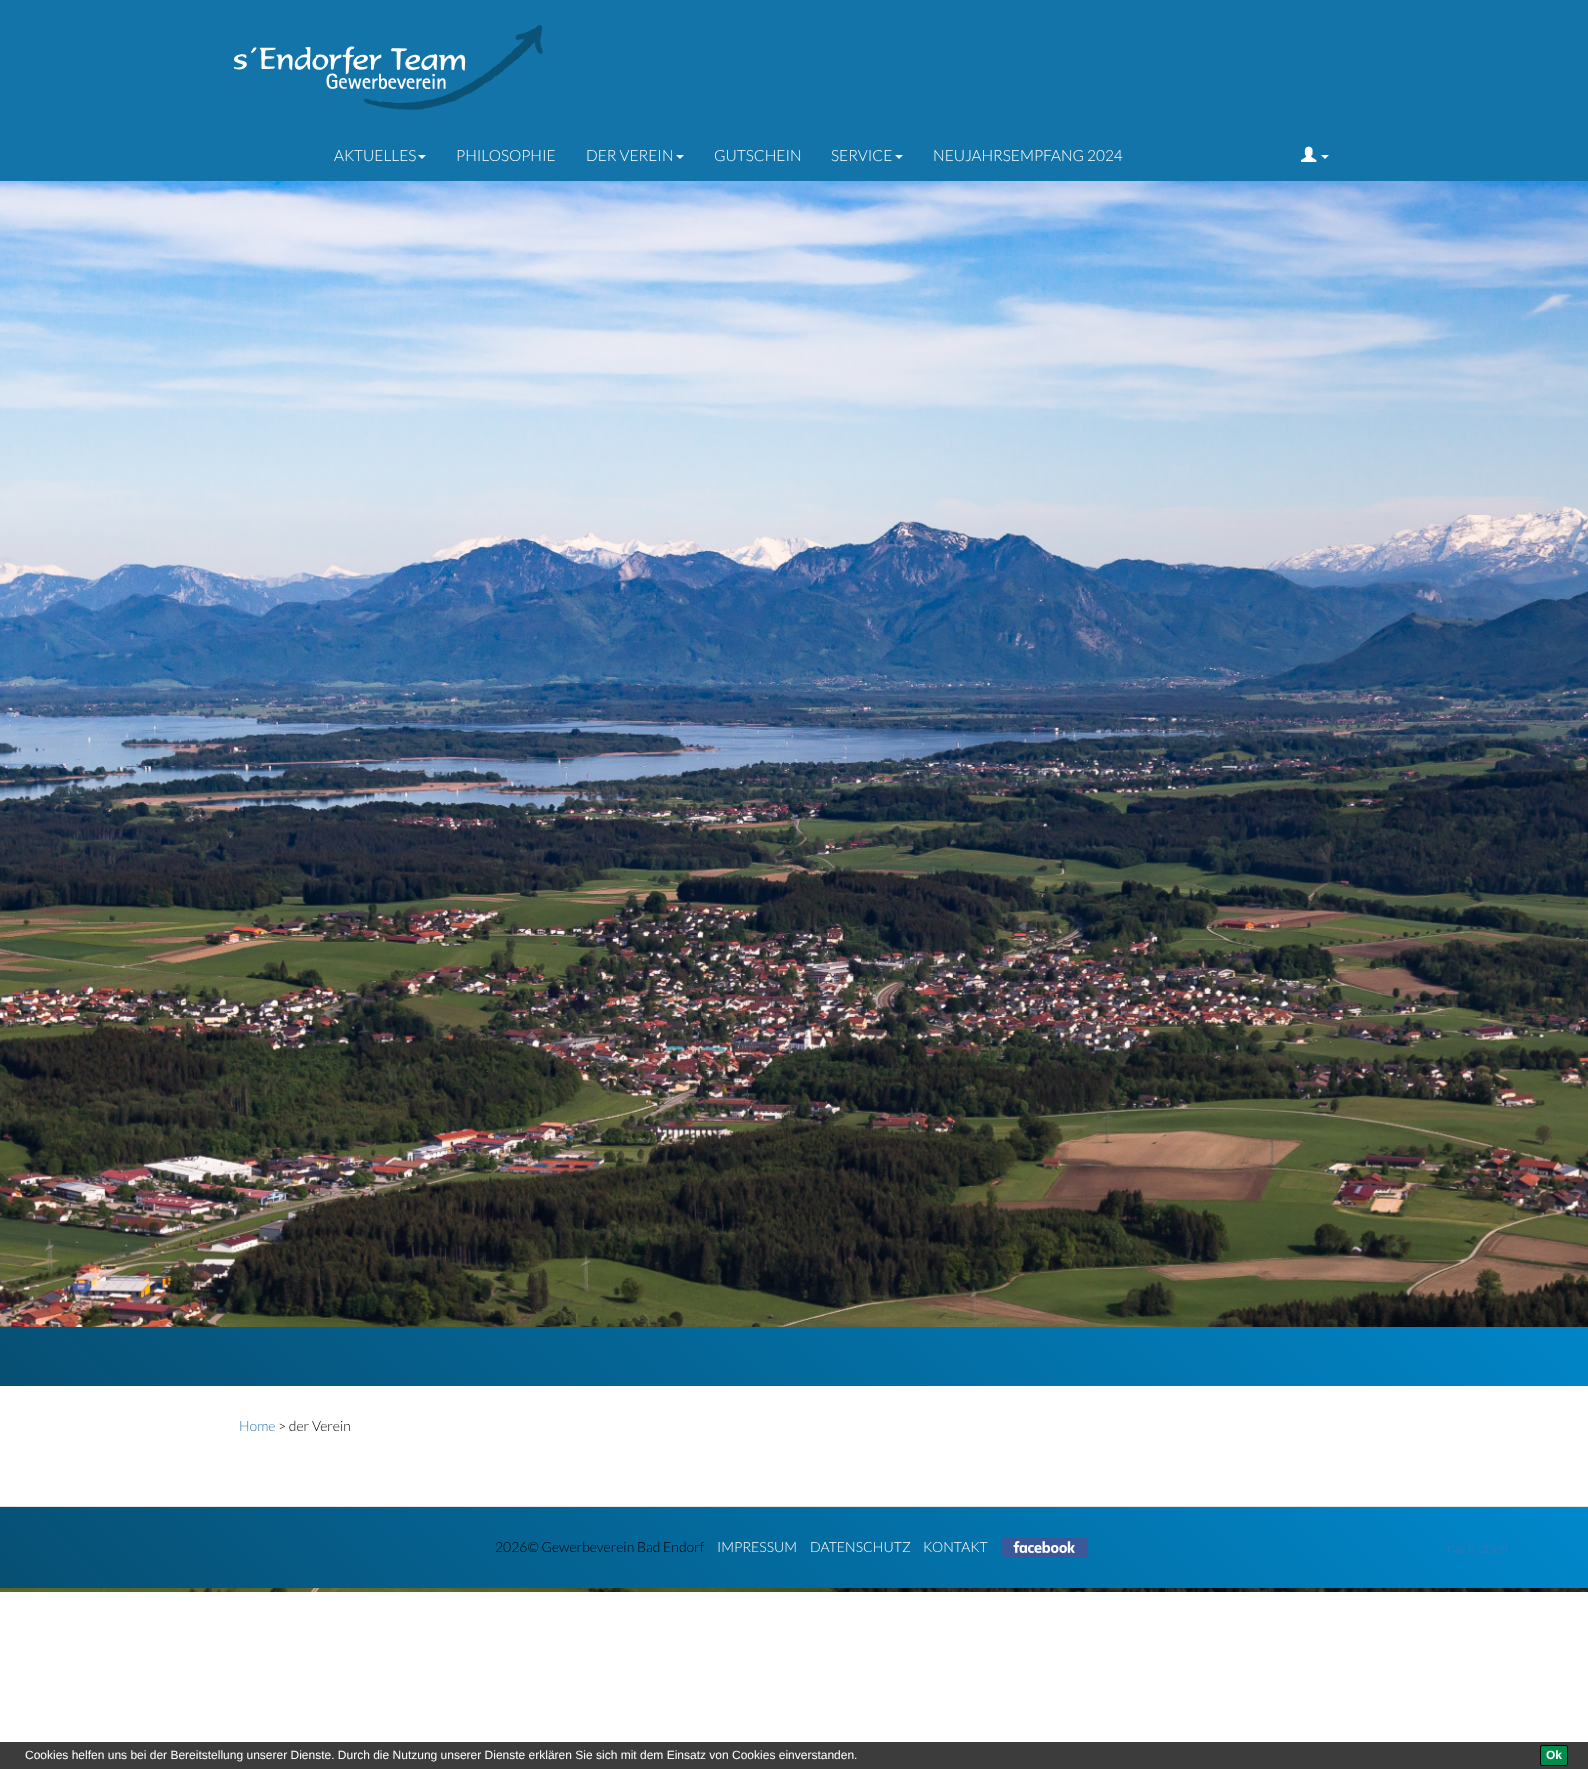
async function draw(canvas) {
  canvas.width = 1588
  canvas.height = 1769
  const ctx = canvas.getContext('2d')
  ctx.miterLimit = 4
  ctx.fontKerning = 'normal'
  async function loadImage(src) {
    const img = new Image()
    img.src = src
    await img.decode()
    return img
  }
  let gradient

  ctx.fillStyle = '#fff'
  ctx.fillRect(0, 0, 1588, 1769)
  ctx.fillStyle = '#1374a9'
  ctx.fillRect(0, 0, 1588, 181)
  ctx.drawImage(await loadImage('image0.png'), 234, 25, 309, 85)
  ctx.font = '300 15.4px Lato'
  ctx.fillStyle = '#fff'
  ctx.fillText('AKTUELLES', 334, 161)
  ctx.beginPath()
  ctx.moveTo(418, 155)
  ctx.lineTo(426, 155)
  ctx.lineTo(422, 159)
  ctx.closePath()
  ctx.fill()
  ctx.fillText('PHILOSOPHIE', 456, 161)
  ctx.fillText('DER VEREIN', 586, 161)
  ctx.beginPath()
  ctx.moveTo(676, 155)
  ctx.lineTo(684, 155)
  ctx.lineTo(680, 159)
  ctx.closePath()
  ctx.fill()
  ctx.fillText('GUTSCHEIN', 714, 161)
  ctx.fillText('SERVICE', 831, 161)
  ctx.beginPath()
  ctx.moveTo(895, 155)
  ctx.lineTo(903, 155)
  ctx.lineTo(899, 159)
  ctx.closePath()
  ctx.fill()
  ctx.fillText('NEUJAHRSEMPFANG 2024', 933, 161)
  ctx.drawImage(await loadImage('image1.png'), 1301, 146, 16, 16)
  ctx.beginPath()
  ctx.moveTo(1321, 155)
  ctx.lineTo(1329, 155)
  ctx.lineTo(1325, 159)
  ctx.closePath()
  ctx.fill()
  ctx.drawImage(await loadImage('image2.png'), 0, 181, 1588, 1411)
  ctx.fillRect(0, 1386, 1588, 120)
  gradient = ctx.createLinearGradient(360, 1746, 1229, 877)
  gradient.addColorStop(0, '#074f73')
  gradient.addColorStop(1, '#08c')
  ctx.fillStyle = gradient
  ctx.fillRect(0, 1327, 1588, 59)
  ctx.font = '300 14px Lato'
  ctx.fillStyle = '#337ab7'
  ctx.fillText('Home', 239, 1431)
  ctx.fillStyle = '#000'
  ctx.fillText('> der Verein', 278, 1431)
  gradient = ctx.createLinearGradient(377, 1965, 1211, 1130)
  gradient.addColorStop(0, '#074f73')
  gradient.addColorStop(1, '#08c')
  ctx.fillStyle = gradient
  ctx.fillRect(0, 1507, 1588, 81)
  ctx.fillStyle = '#e5e5e5'
  ctx.fillRect(0, 1506, 1588, 1)
  ctx.fillStyle = '#000'
  ctx.fillText('2026© Gewerbeverein Bad Endorf', 495, 1552)
  ctx.fillStyle = '#fff'
  ctx.fillText('IMPRESSUM', 717, 1552)
  ctx.fillText('DATENSCHUTZ', 810, 1552)
  ctx.fillText('KONTAKT', 923, 1552)
  ctx.drawImage(await loadImage('image3.png'), 1001, 1538, 87, 20)
  ctx.fillStyle = '#337ab7'
  ctx.fillText('nach oben', 1447, 1553)
  ctx.fillStyle = '#3c3c3c'
  ctx.fillRect(0, 1742, 1588, 27)
  ctx.font = '12px Liberation Sans'
  ctx.fillStyle = '#fff'
  ctx.fillText('Cookies helfen uns bei der Bereitstellung unserer Dienste. Durch die Nutzung unserer Dienste erklären Sie sich mit dem Einsatz von Cookies einverstanden.', 25, 1759)
  ctx.fillStyle = '#008d4c'
  ctx.beginPath()
  ctx.roundRect(1540.5, 1745.5, 27, 20, 1.5)
  ctx.fill()
  ctx.strokeStyle = '#000'
  ctx.stroke()
  ctx.font = 'bold 12px Liberation Sans'
  ctx.fillStyle = '#fff'
  ctx.fillText('Ok', 1546, 1759)
}

draw(document.querySelector('canvas'))
